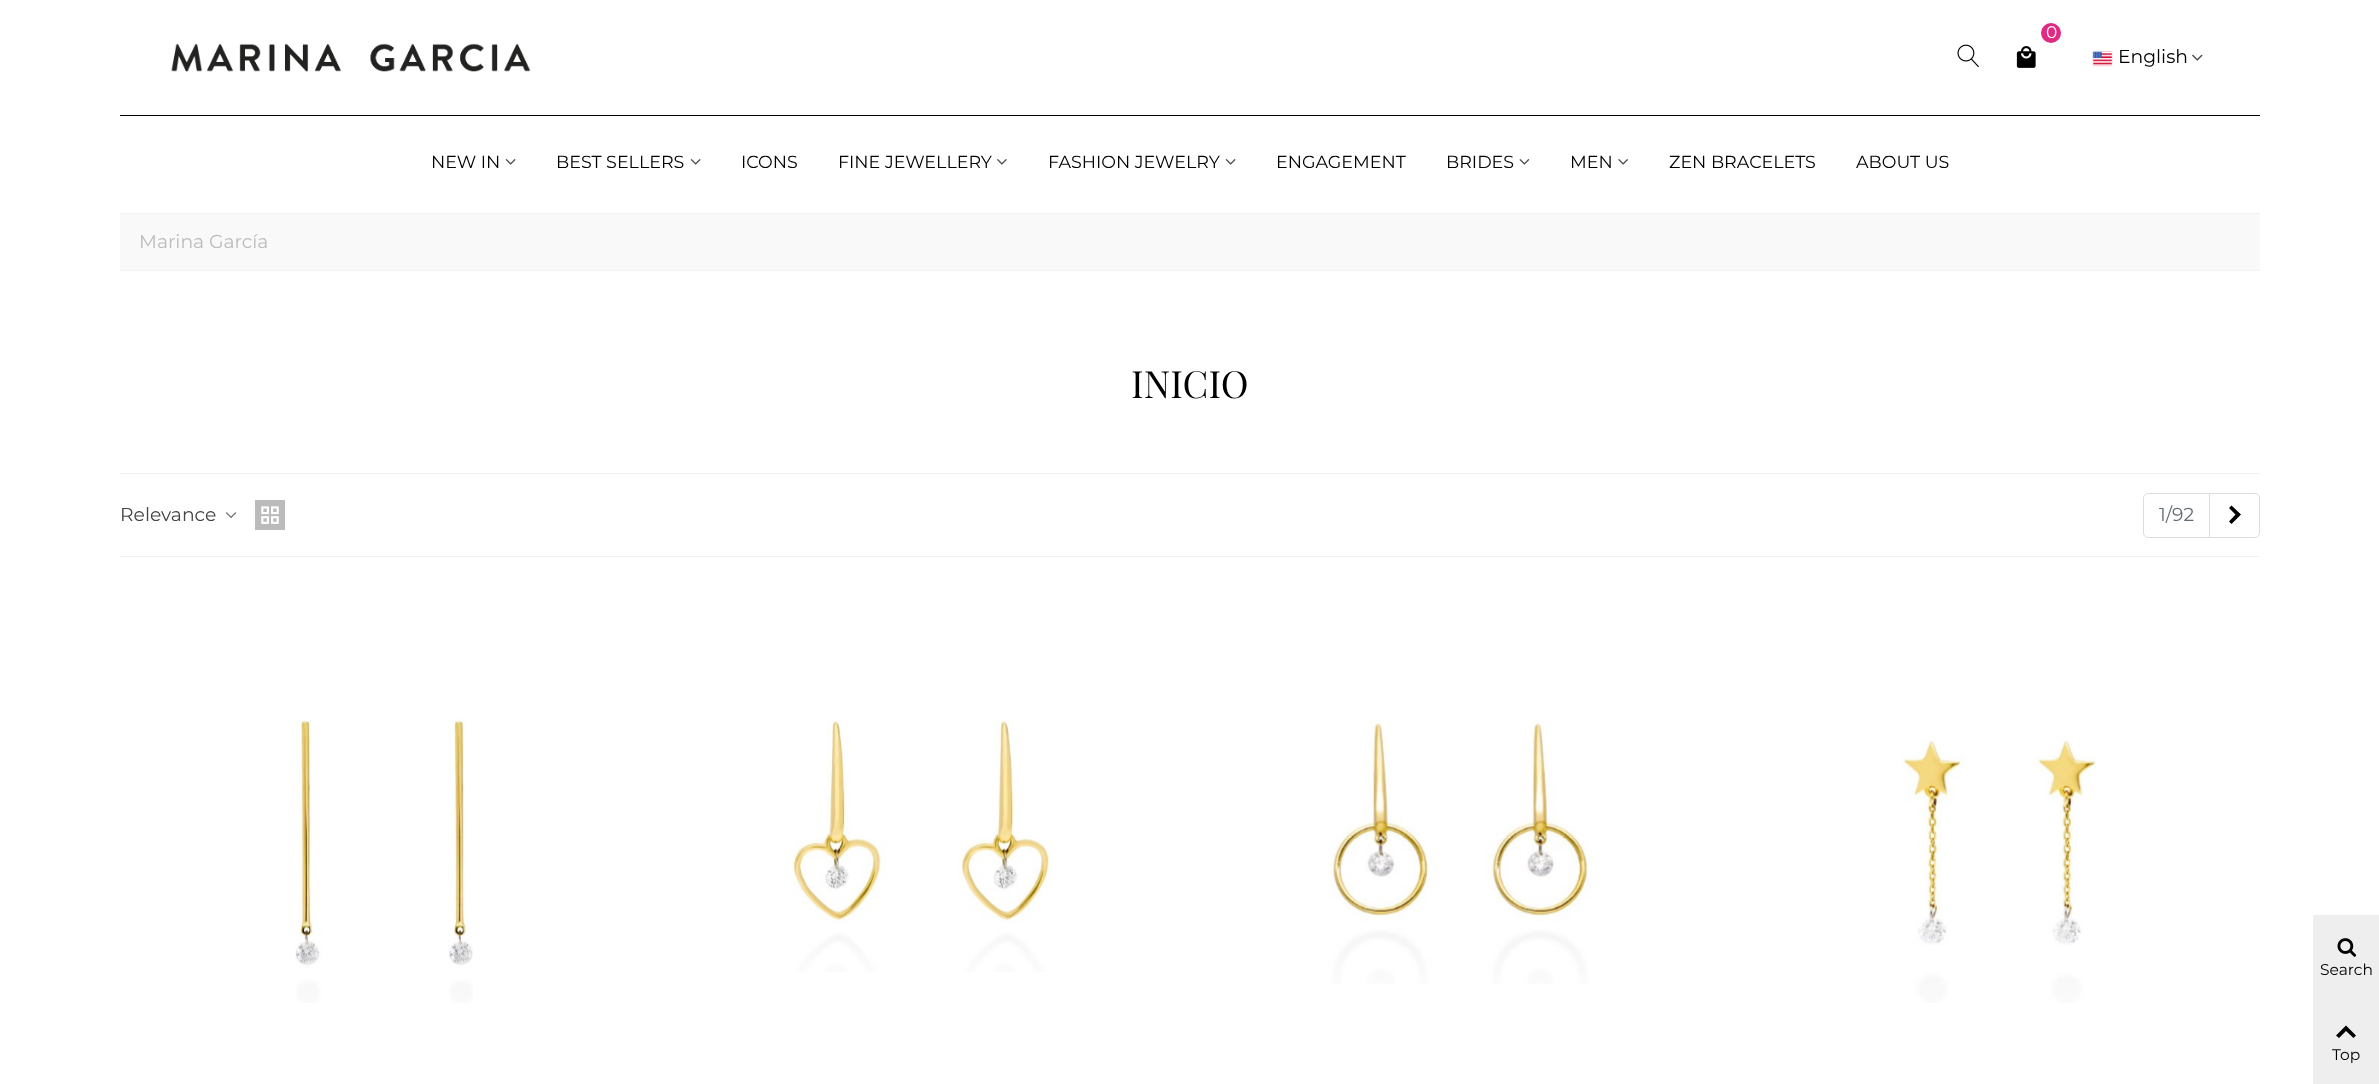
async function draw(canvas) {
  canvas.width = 2379
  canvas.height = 1084
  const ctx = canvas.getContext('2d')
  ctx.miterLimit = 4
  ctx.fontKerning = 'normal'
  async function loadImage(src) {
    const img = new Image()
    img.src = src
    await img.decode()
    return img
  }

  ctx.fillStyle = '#fff'
  ctx.fillRect(0, 0, 2379, 1084)
  ctx.drawImage(await loadImage('image0.png'), 171, 43, 360, 29)
  ctx.fillStyle = '#e02b84'
  ctx.beginPath()
  ctx.arc(2051, 33, 10, 0, 2 * Math.PI)
  ctx.fill()
  ctx.font = '17px Montserrat'
  ctx.fillStyle = '#fff'
  ctx.fillText('0', 2046, 38)
  ctx.drawImage(await loadImage('image1.png'), 2016, 46, 20, 22)
  ctx.drawImage(await loadImage('image2.png'), 1957, 44, 22, 24)
  ctx.drawImage(await loadImage('image3.png'), 2092, 51, 21, 16)
  ctx.font = '18.75px Montserrat'
  ctx.fillStyle = '#000'
  ctx.fillText('English', 2118, 63)
  ctx.drawImage(await loadImage('image4.png'), 2192, 54, 11, 7)
  ctx.fillRect(120, 115, 2140, 1)
  ctx.font = '17.5px Montserrat'
  ctx.fillText('NEW IN', 431, 168)
  ctx.drawImage(await loadImage('image5.png'), 505, 159, 11, 6)
  ctx.fillText('BEST SELLERS', 556, 168)
  ctx.drawImage(await loadImage('image5.png'), 690, 159, 11, 6)
  ctx.fillText('ICONS', 741, 168)
  ctx.fillText('FINE JEWELLERY', 838, 168)
  ctx.drawImage(await loadImage('image6.png'), 997, 159, 10, 6)
  ctx.fillText('FASHION JEWELRY', 1048, 168)
  ctx.drawImage(await loadImage('image5.png'), 1225, 159, 11, 6)
  ctx.fillText('ENGAGEMENT', 1276, 168)
  ctx.fillText('BRIDES', 1446, 168)
  ctx.drawImage(await loadImage('image7.png'), 1519, 159, 11, 6)
  ctx.fillText('MEN', 1570, 168)
  ctx.drawImage(await loadImage('image8.png'), 1618, 159, 10, 6)
  ctx.fillText('ZEN BRACELETS', 1669, 168)
  ctx.fillText('ABOUT US', 1856, 168)
  ctx.fillStyle = '#f9f9f9'
  ctx.fillRect(120, 214, 2140, 56)
  ctx.fillStyle = '#f3f3f3'
  ctx.fillRect(120, 213, 2140, 1)
  ctx.fillRect(120, 270, 2140, 1)
  ctx.font = '18.75px Montserrat'
  ctx.fillStyle = '#bbb'
  ctx.fillText('Marina García', 139, 248)
  ctx.font = '37.5px Playfair Display'
  ctx.fillStyle = '#000'
  ctx.fillText('INICIO', 1131, 398)
  ctx.fillStyle = '#f2f2f2'
  ctx.fillRect(120, 473, 2140, 1)
  ctx.fillRect(120, 556, 2140, 1)
  ctx.font = '18.75px Montserrat'
  ctx.fillStyle = '#444'
  ctx.fillText('Relevance', 120, 521)
  ctx.drawImage(await loadImage('image9.png'), 225, 512, 12, 7)
  ctx.fillStyle = '#bbb'
  ctx.fillRect(255, 500, 30, 30)
  ctx.drawImage(await loadImage('image10.png'), 261, 506, 18, 18)
  ctx.beginPath()
  ctx.roundRect(2209.5, 493.5, 50, 44, [0, 4.5, 4.5, 0])
  ctx.strokeStyle = '#ddd'
  ctx.stroke()
  ctx.fillStyle = '#fff'
  ctx.beginPath()
  ctx.roundRect(2143.5, 493.5, 66, 44, [4.5, 0, 0, 4.5])
  ctx.fill()
  ctx.stroke()
  ctx.fillStyle = '#636c72'
  ctx.fillText('1/92', 2159, 521)
  ctx.fillStyle = '#000'
  ctx.beginPath()
  ctx.moveTo(2229, 521.5)
  ctx.lineTo(2235.5, 514.5)
  ctx.lineTo(2229, 508)
  ctx.lineTo(2231.5, 505.5)
  ctx.lineTo(2241, 514.5)
  ctx.lineTo(2231.5, 524)
  ctx.closePath()
  ctx.fill()
  ctx.drawImage(await loadImage('image11.png'), 295, 719, 178, 284)
  ctx.drawImage(await loadImage('image12.png'), 791, 719, 262, 253)
  ctx.drawImage(await loadImage('image13.png'), 1330, 719, 263, 265)
  ctx.drawImage(await loadImage('image14.png'), 1901, 734, 195, 269)
  ctx.fillStyle = '#eee'
  ctx.fillRect(2313, 915, 66, 169)
  ctx.drawImage(await loadImage('image15.png'), 2337, 938, 20, 19)
  ctx.font = '15.5px Montserrat'
  ctx.fillStyle = '#000'
  ctx.fillText('Search', 2320, 975)
  ctx.beginPath()
  ctx.moveTo(2336, 1035.5)
  ctx.lineTo(2346, 1025.5)
  ctx.lineTo(2356, 1035.5)
  ctx.lineTo(2353.5, 1038)
  ctx.lineTo(2346, 1031)
  ctx.lineTo(2339, 1038)
  ctx.closePath()
  ctx.fill()
  ctx.fillText('Top', 2332, 1060)
}

draw(document.querySelector('canvas'))
